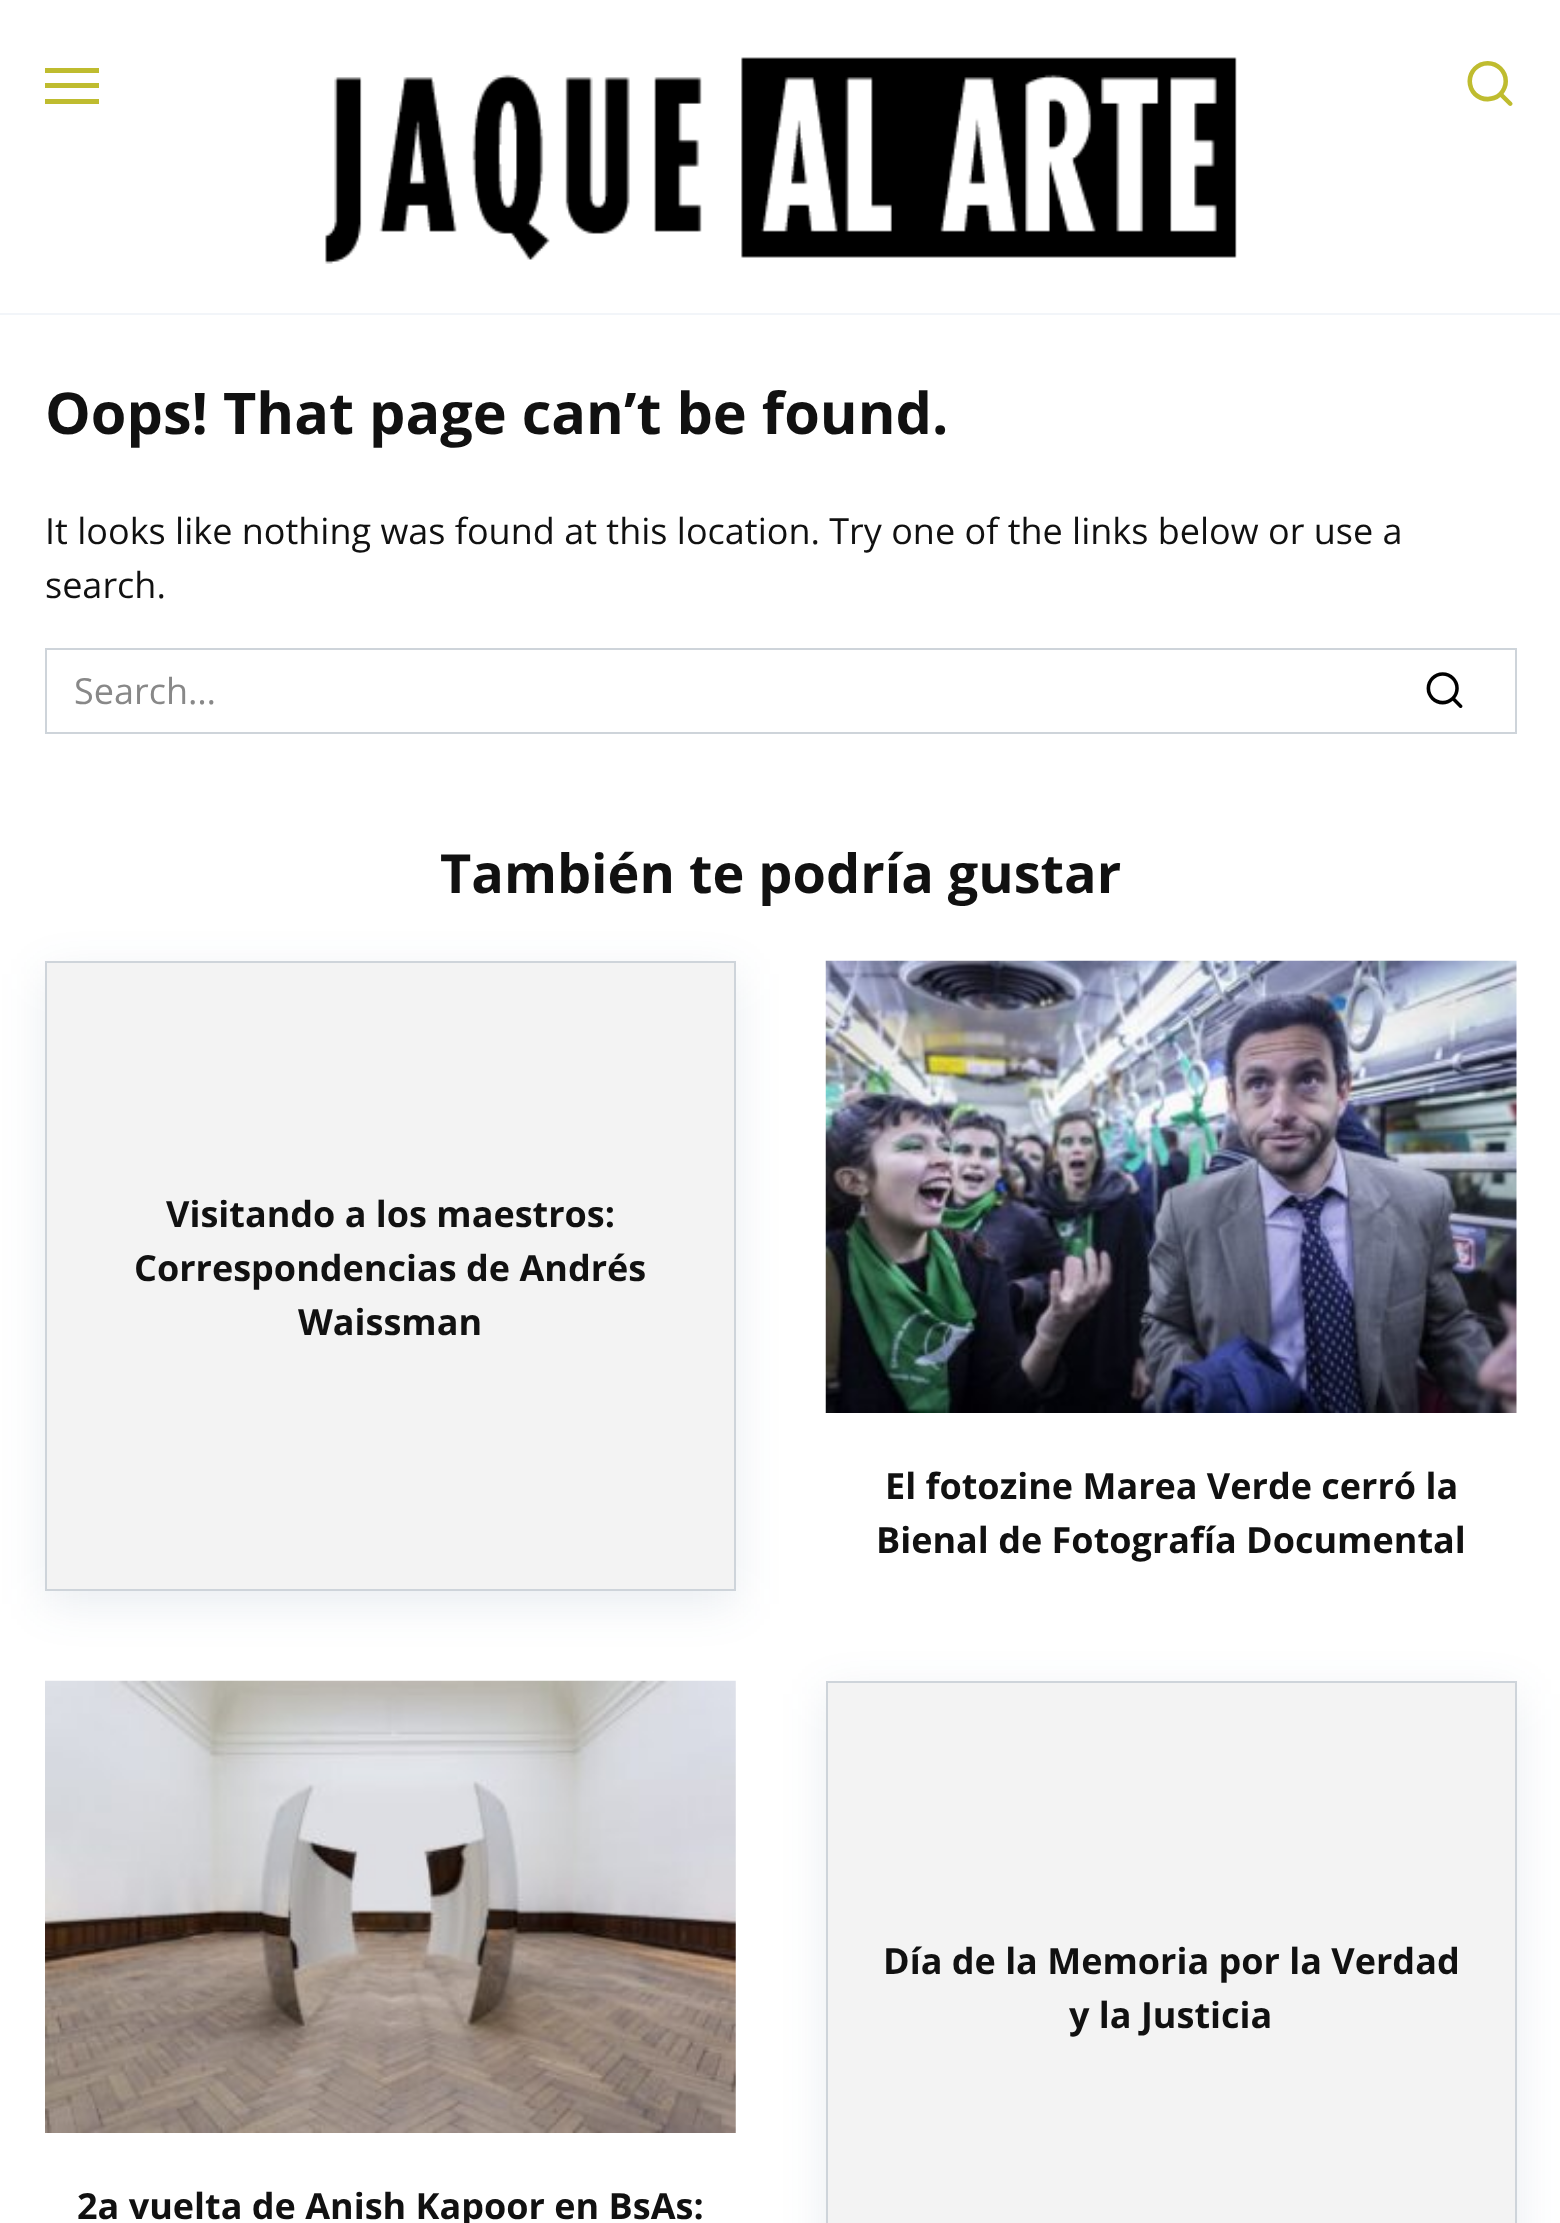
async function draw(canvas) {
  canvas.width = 1560
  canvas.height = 2223
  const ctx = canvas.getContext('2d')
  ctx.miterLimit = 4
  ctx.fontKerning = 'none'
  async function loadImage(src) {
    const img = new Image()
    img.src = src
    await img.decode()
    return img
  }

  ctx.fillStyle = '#fff'
  ctx.fillRect(0, 0, 1560, 2223)
  ctx.fillStyle = '#f2f5f9'
  ctx.fillRect(0, 313, 1560, 2)
  ctx.fillStyle = '#bfbc2f'
  ctx.fillRect(45, 68, 54, 5)
  ctx.fillRect(45, 83, 54, 5)
  ctx.fillRect(45, 99, 54, 5)
  ctx.drawImage(await loadImage('image0.png'), 325, 57, 912, 207)
  ctx.font = '54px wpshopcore'
  ctx.fillText('🔍', 1463, 106)
  ctx.font = 'bold 57.6px Open Sans'
  ctx.fillStyle = '#111'
  ctx.fillText('Oops! That page can’t be found.', 45, 434)
  ctx.font = '36px Open Sans'
  ctx.fillText('It looks like nothing was found at this location. Try one of the links below or use a', 45, 544)
  ctx.fillText('search.', 45, 598)
  ctx.strokeStyle = '#ced4da'
  ctx.lineWidth = 2
  ctx.strokeRect(46, 649, 1470, 84)
  ctx.fillStyle = '#888'
  ctx.fillText('Search…', 74, 704)
  ctx.font = '43px wpshopcore'
  ctx.fillStyle = '#000'
  ctx.fillText('🔍', 1423, 708)
  ctx.font = 'bold 54px Open Sans'
  ctx.fillStyle = '#111'
  ctx.fillText('También te podría gustar', 440, 893)
  ctx.fillStyle = '#264e761a'
  ctx.filter = 'blur(22.5px)'
  ctx.beginPath()
  ctx.rect(45, 974, 691, 630)
  ctx.fill()
  ctx.filter = 'none'
  ctx.fillStyle = '#f3f3f3'
  ctx.beginPath()
  ctx.rect(46, 962, 689, 628)
  ctx.fill()
  ctx.stroke()
  ctx.font = 'bold 36px Open Sans'
  ctx.fillStyle = '#111'
  ctx.fillText('Visitando a los maestros:', 166, 1227)
  ctx.fillText('Correspondencias de Andrés', 134, 1281)
  ctx.fillText('Waissman', 298, 1335)
  ctx.drawImage(await loadImage('image1.png'), 825, 960, 692, 453)
  ctx.fillText('El fotozine Marea Verde cerró la', 885, 1499)
  ctx.fillText('Bienal de Fotografía Documental', 876, 1553)
  ctx.fillStyle = '#264e761a'
  ctx.filter = 'blur(22.5px)'
  ctx.beginPath()
  ctx.rect(826, 1694, 691, 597)
  ctx.fill()
  ctx.filter = 'none'
  ctx.fillStyle = '#f3f3f3'
  ctx.beginPath()
  ctx.rect(827, 1682, 689, 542)
  ctx.fill()
  ctx.stroke()
  ctx.fillStyle = '#111'
  ctx.fillText('Día de la Memoria por la Verdad', 883, 1974)
  ctx.fillText('y la Justicia', 1069, 2028)
  ctx.drawImage(await loadImage('image2.png'), 45, 1680, 691, 453)
  ctx.fillText('2a vuelta de Anish Kapoor en BsAs:', 77, 2219)
}

draw(document.querySelector('canvas'))
